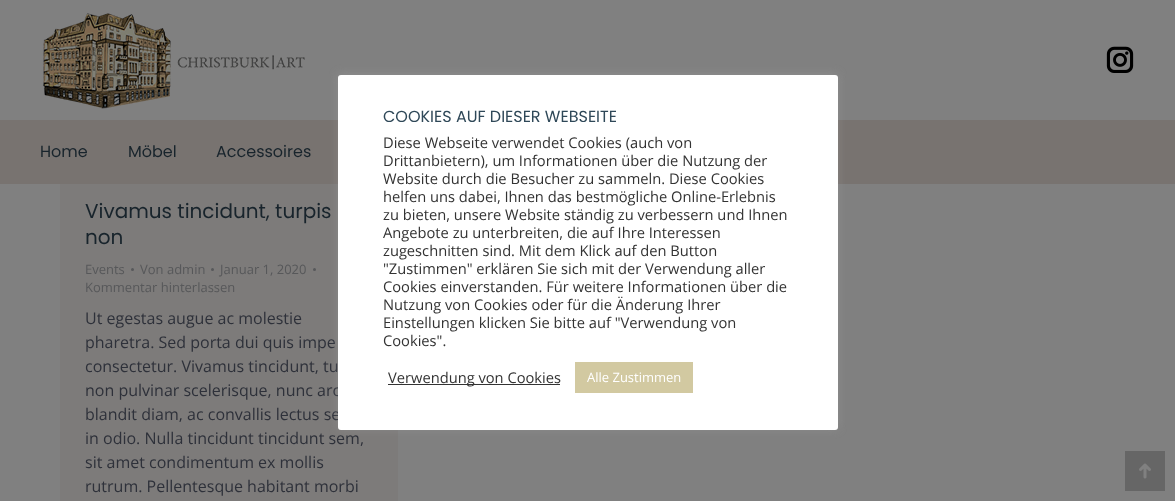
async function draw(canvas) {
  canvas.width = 1175
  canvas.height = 501
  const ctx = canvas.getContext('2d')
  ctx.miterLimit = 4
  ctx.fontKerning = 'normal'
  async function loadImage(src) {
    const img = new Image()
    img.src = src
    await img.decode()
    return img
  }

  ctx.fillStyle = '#808080'
  ctx.fillRect(0, 0, 1175, 501)
  ctx.drawImage(await loadImage('image0.png'), 43, 13, 262, 96)
  ctx.drawImage(await loadImage('image1.png'), 1106, 46, 28, 27)
  ctx.fillStyle = '#787370'
  ctx.fillRect(0, 120, 1175, 64)
  ctx.font = '16px Poppins'
  ctx.fillStyle = '#18242c'
  ctx.fillText('Home', 40, 157)
  ctx.fillText('Möbel', 128, 157)
  ctx.fillText('Accessoires', 216, 157)
  ctx.fillStyle = '#7d7b7a'
  ctx.fillRect(60, 184, 338, 317)
  ctx.font = '20px Poppins'
  ctx.fillStyle = '#18242c'
  ctx.fillText('Vivamus tincidunt, turpis', 85, 218)
  ctx.fillText('non', 85, 244)
  ctx.font = '13px Open Sans'
  ctx.fillStyle = '#57585a'
  ctx.fillText('Events', 85, 274)
  ctx.beginPath()
  ctx.arc(132.5, 269.5, 1.5, 0, 2 * Math.PI)
  ctx.fill()
  ctx.fillText('Von admin', 140, 274)
  ctx.beginPath()
  ctx.arc(212.5, 269.5, 1.5, 0, 2 * Math.PI)
  ctx.fill()
  ctx.fillText('Januar 1, 2020', 220, 274)
  ctx.beginPath()
  ctx.arc(314.5, 269.5, 1.5, 0, 2 * Math.PI)
  ctx.fill()
  ctx.fillText('Kommentar hinterlassen', 85, 292)
  ctx.font = '16px Open Sans'
  ctx.fillStyle = '#2e313a'
  ctx.fillText('Ut egestas augue ac molestie', 85, 324)
  ctx.fillText('pharetra. Sed porta dui quis impe', 85, 348)
  ctx.fillText('consectetur. Vivamus tincidunt, tu', 85, 372)
  ctx.fillText('non pulvinar scelerisque, nunc arc', 85, 396)
  ctx.fillText('blandit diam, ac convallis lectus se', 85, 420)
  ctx.fillText('in odio. Nulla tincidunt tincidunt sem,', 85, 444)
  ctx.fillText('sit amet condimentum ex mollis', 85, 468)
  ctx.fillText('rutrum. Pellentesque habitant morbi', 85, 492)
  ctx.fillStyle = '#666'
  ctx.fillRect(1125, 451, 40, 40)
  ctx.drawImage(await loadImage('image2.png'), 1139, 463, 12, 16)
  ctx.fillStyle = '#acabab4d'
  ctx.filter = 'blur(5px)'
  ctx.beginPath()
  ctx.roundRect(338, 74, 500, 355, 3)
  ctx.fill()
  ctx.filter = 'none'
  ctx.fillStyle = '#fff'
  ctx.beginPath()
  ctx.roundRect(338, 75, 500, 355, 3)
  ctx.fill()
  ctx.font = '16px Poppins'
  ctx.fillStyle = '#2f4858'
  ctx.fillText('COOKIES AUF DIESER WEBSEITE', 383, 122)
  ctx.font = '14.7px Open Sans'
  ctx.fillStyle = '#333'
  ctx.fillText('Diese Webseite verwendet Cookies (auch von', 383, 148)
  ctx.fillText('Drittanbietern), um Informationen über die Nutzung der', 383, 166)
  ctx.fillText('Website durch die Besucher zu sammeln. Diese Cookies', 383, 184)
  ctx.fillText('helfen uns dabei, Ihnen das bestmögliche Online-Erlebnis', 383, 202)
  ctx.fillText('zu bieten, unsere Website ständig zu verbessern und Ihnen', 383, 220)
  ctx.fillText('Angebote zu unterbreiten, die auf Ihre Interessen', 383, 238)
  ctx.fillText('zugeschnitten sind. Mit dem Klick auf den Button', 383, 256)
  ctx.fillText('"Zustimmen" erklären Sie sich mit der Verwendung aller', 383, 274)
  ctx.fillText('Cookies einverstanden. Für weitere Informationen über die', 383, 292)
  ctx.fillText('Nutzung von Cookies oder für die Änderung Ihrer', 383, 310)
  ctx.fillText('Einstellungen klicken Sie bitte auf "Verwendung von', 383, 328)
  ctx.fillText('Cookies".', 383, 346)
  ctx.fillRect(388, 384, 172, 1)
  ctx.fillText('Verwendung von Cookies', 388, 383)
  ctx.fillStyle = '#d2c9a1'
  ctx.fillRect(575, 362, 118, 31)
  ctx.font = '13px Open Sans'
  ctx.fillStyle = '#fff'
  ctx.fillText('Alle Zustimmen', 587, 382)
}

draw(document.querySelector('canvas'))
